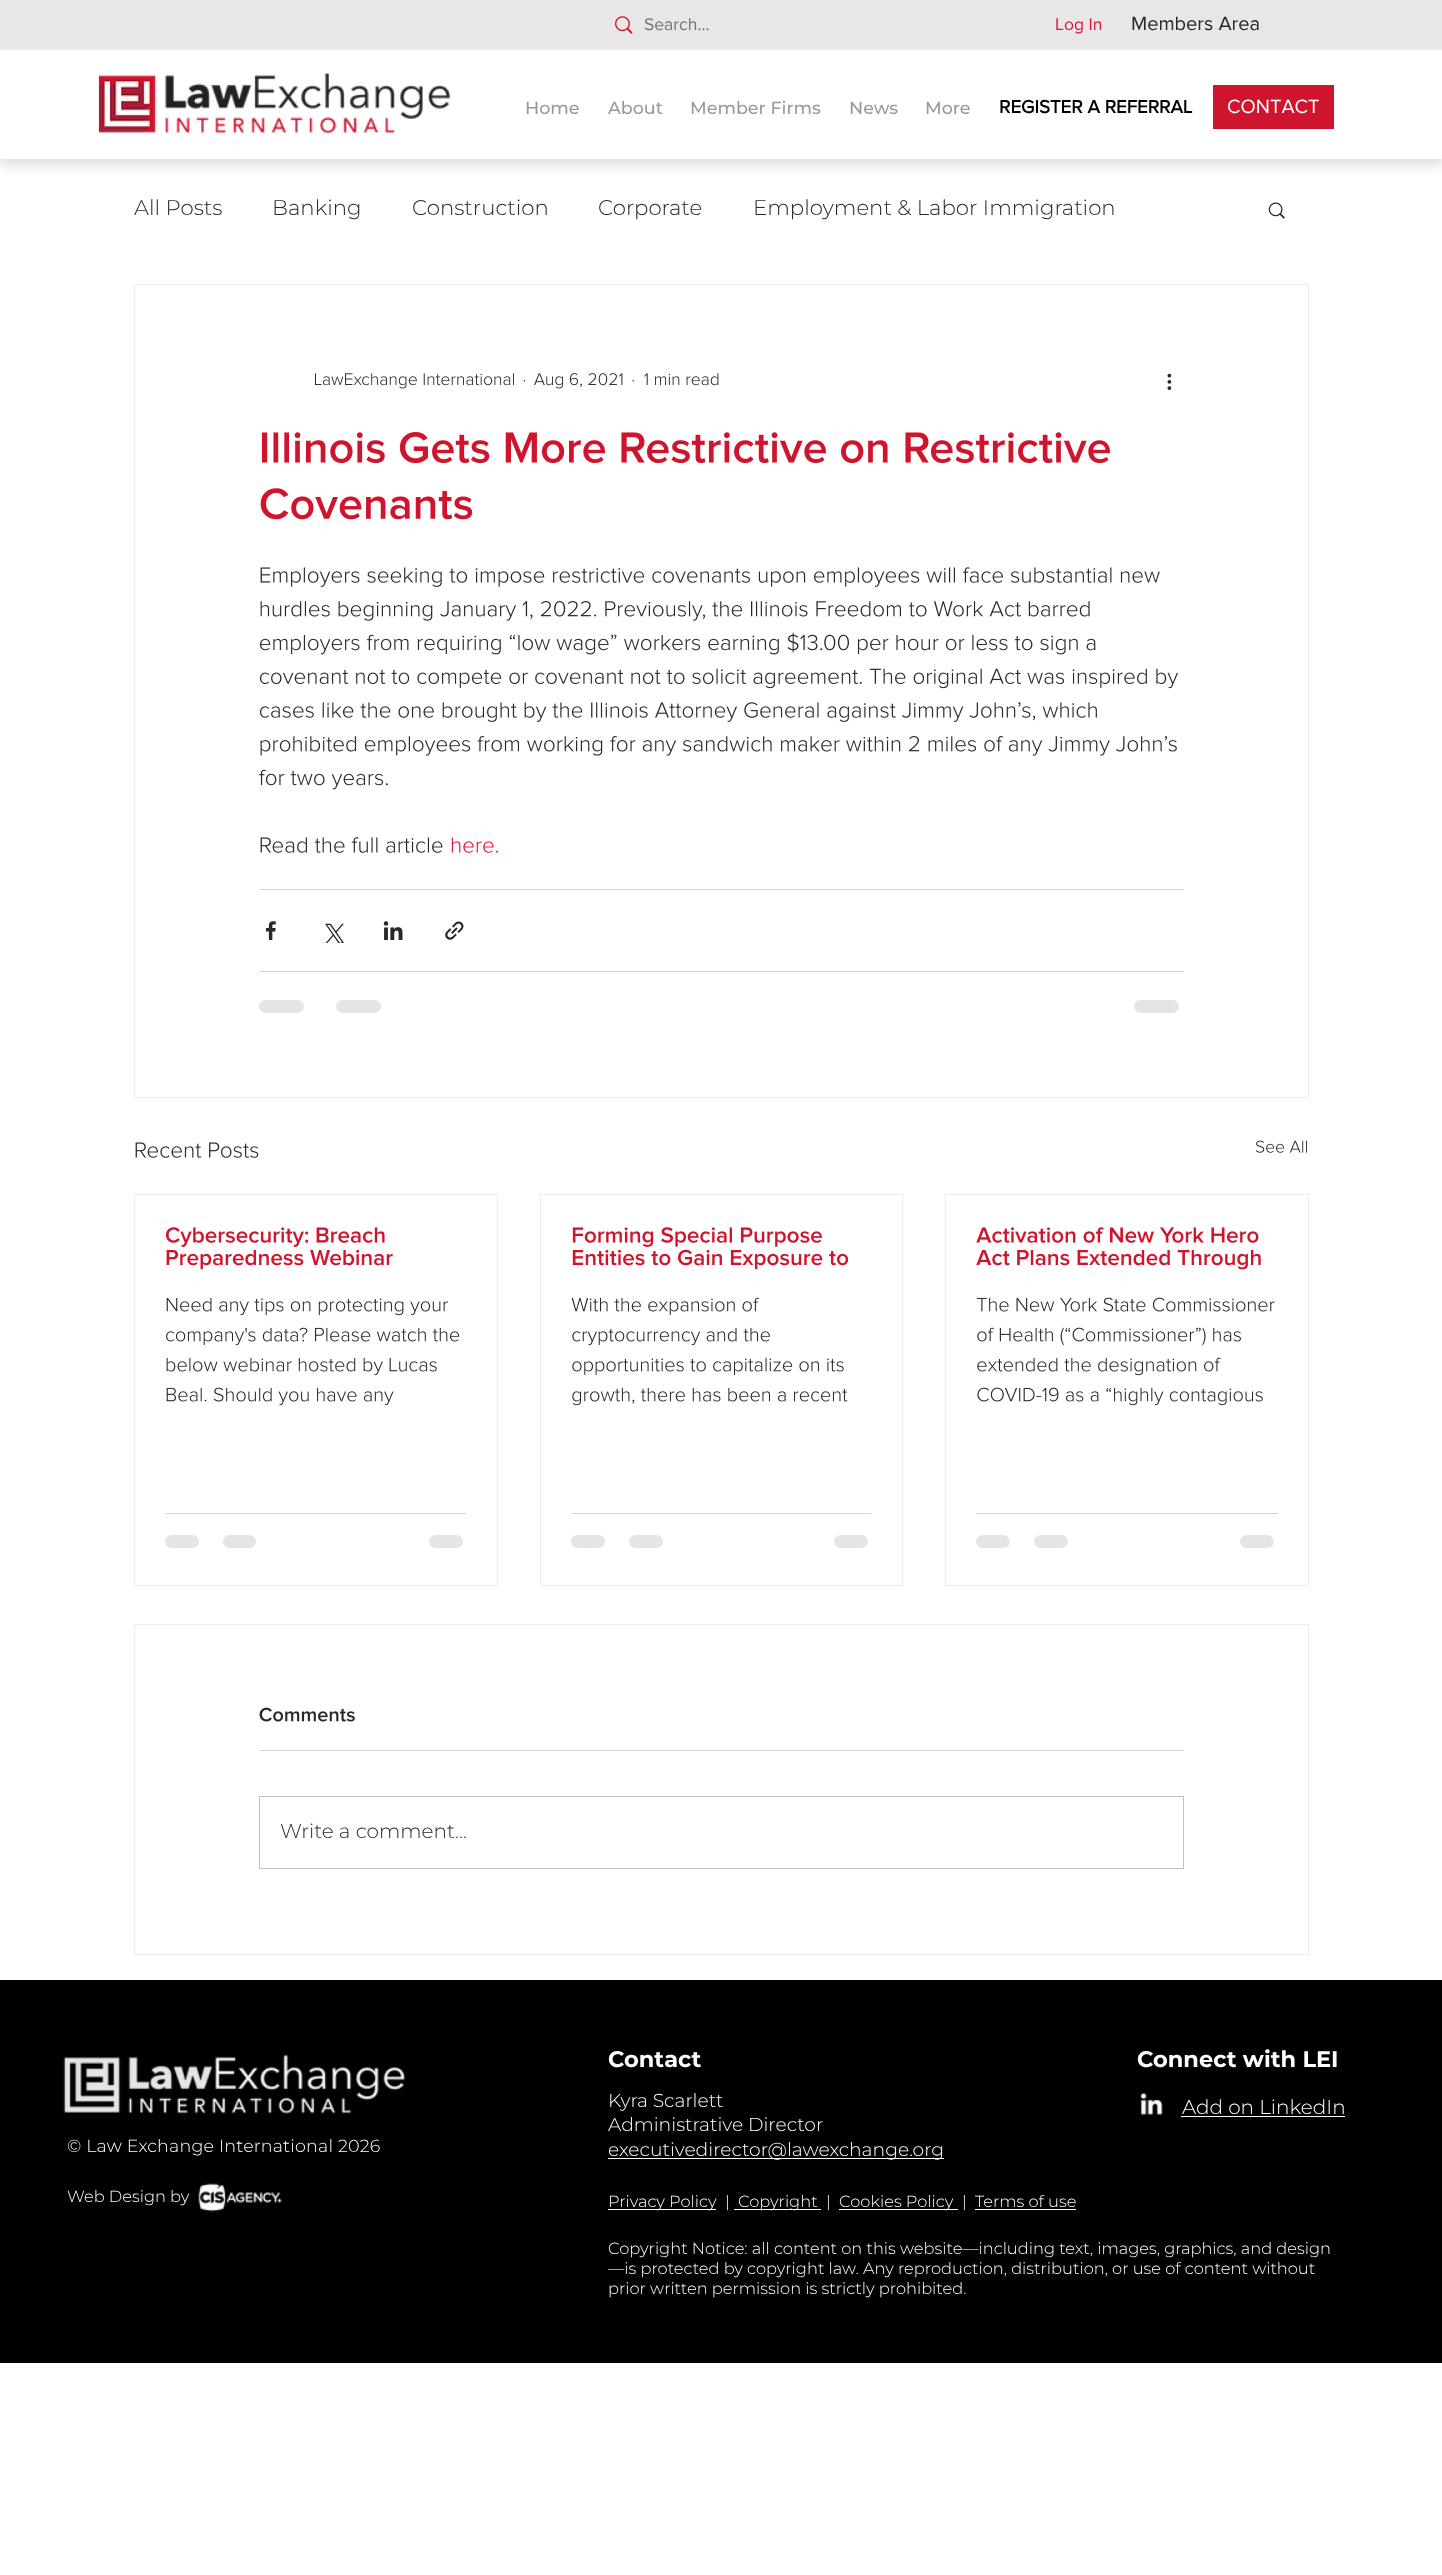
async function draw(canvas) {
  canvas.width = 1442
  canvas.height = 2575
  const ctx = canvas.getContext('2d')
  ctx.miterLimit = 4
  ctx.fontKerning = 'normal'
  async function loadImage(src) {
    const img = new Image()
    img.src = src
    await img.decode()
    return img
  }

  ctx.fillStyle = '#fff'
  ctx.fillRect(0, 0, 1442, 2575)
  ctx.fillStyle = '#00000026'
  ctx.filter = 'blur(7px)'
  ctx.beginPath()
  ctx.rect(-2, 0, 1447, 164)
  ctx.fill()
  ctx.filter = 'none'
  ctx.fillStyle = '#fff'
  ctx.fillRect(0, 50, 1442, 109)
  ctx.fillStyle = '#e8e6e6'
  ctx.fillRect(0, 0, 1442, 50)
  ctx.drawImage(await loadImage('image0.png'), 615, 16, 18, 18)
  ctx.font = '17.5px "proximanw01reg"'
  ctx.fillStyle = '#757474'
  ctx.fillText('Search...', 644, 30)
  ctx.fillStyle = '#db163a'
  ctx.fillText('Log In', 1055, 30)
  ctx.font = '20px "proximanw01reg"'
  ctx.fillStyle = '#282828'
  ctx.fillText('Members Area', 1131, 30)
  ctx.drawImage(await loadImage('image1.png'), 98, 72, 353, 62)
  ctx.font = '500 17.5px Montserrat'
  ctx.fillStyle = '#999'
  ctx.fillText('Home', 525, 114)
  ctx.fillText('About', 608, 114)
  ctx.fillText('Member Firms', 690, 114)
  ctx.fillText('News', 849, 114)
  ctx.fillText('More', 925, 114)
  ctx.font = 'bold 18.75px "proximanw01reg"'
  ctx.fillStyle = '#000'
  ctx.fillText('REGISTER A REFERRAL', 999, 113)
  ctx.fillStyle = '#cf152d'
  ctx.fillRect(1213, 85, 121, 44)
  ctx.font = '20px "proximanw01reg"'
  ctx.fillStyle = '#fff'
  ctx.fillText('CONTACT', 1227, 113)
  ctx.font = '300 21.25px Montserrat'
  ctx.fillStyle = '#282828'
  ctx.fillText('All Posts', 134, 215)
  ctx.fillText('Banking', 272, 215)
  ctx.fillText('Construction', 412, 215)
  ctx.fillText('Corporate', 598, 215)
  ctx.fillText('Employment & Labor Immigration', 753, 215)
  ctx.drawImage(await loadImage('image2.png'), 1268, 202, 17, 17)
  ctx.strokeStyle = '#eeecec'
  ctx.strokeRect(134.5, 284.5, 1174, 813)
  ctx.drawImage(await loadImage('image3.png'), 314, 373, 200, 16)
  ctx.drawImage(await loadImage('image4.png'), 523, 380, 3, 2)
  ctx.drawImage(await loadImage('image5.png'), 534, 373, 89, 16)
  ctx.drawImage(await loadImage('image6.png'), 632, 380, 2, 2)
  ctx.drawImage(await loadImage('image7.png'), 644, 373, 75, 13)
  ctx.drawImage(await loadImage('image8.png'), 1167, 373, 5, 17)
  ctx.drawImage(await loadImage('image9.png'), 261, 432, 849, 32)
  ctx.drawImage(await loadImage('image10.png'), 260, 488, 213, 32)
  ctx.drawImage(await loadImage('image11.png'), 260, 567, 900, 20)
  ctx.drawImage(await loadImage('image12.png'), 260, 601, 830, 20)
  ctx.drawImage(await loadImage('image13.png'), 260, 632, 836, 23)
  ctx.drawImage(await loadImage('image14.png'), 260, 668, 918, 21)
  ctx.drawImage(await loadImage('image15.png'), 260, 702, 837, 20)
  ctx.drawImage(await loadImage('image16.png'), 260, 736, 917, 20)
  ctx.drawImage(await loadImage('image17.png'), 259, 769, 129, 21)
  ctx.drawImage(await loadImage('image18.png'), 260, 837, 183, 16)
  ctx.drawImage(await loadImage('image19.png'), 451, 837, 47, 16)
  ctx.fillStyle = '#d4d4d4'
  ctx.fillRect(259, 889, 925, 1)
  ctx.drawImage(await loadImage('image20.png'), 266, 921, 10, 19)
  ctx.drawImage(await loadImage('image21.png'), 325, 923, 19, 20)
  ctx.drawImage(await loadImage('image22.png'), 383, 921, 20, 19)
  ctx.drawImage(await loadImage('image23.png'), 445, 921, 19, 19)
  ctx.fillRect(259, 971, 925, 1)
  ctx.fillStyle = '#e5e5e5'
  ctx.beginPath()
  ctx.roundRect(259, 1000, 45, 13, 6.5)
  ctx.fill()
  ctx.beginPath()
  ctx.roundRect(336, 1000, 45, 13, 6.5)
  ctx.fill()
  ctx.beginPath()
  ctx.roundRect(1134, 1000, 45, 13, 6.5)
  ctx.fill()
  ctx.drawImage(await loadImage('image24.png'), 135, 1142, 124, 16)
  ctx.drawImage(await loadImage('image25.png'), 1255, 1140, 52, 13)
  ctx.strokeRect(134.5, 1194.5, 363, 391)
  ctx.drawImage(await loadImage('image26.png'), 166, 1227, 219, 20)
  ctx.drawImage(await loadImage('image27.png'), 166, 1249, 227, 21)
  ctx.drawImage(await loadImage('image28.png'), 166, 1297, 282, 19)
  ctx.drawImage(await loadImage('image29.png'), 166, 1327, 294, 19)
  ctx.drawImage(await loadImage('image30.png'), 166, 1357, 271, 19)
  ctx.drawImage(await loadImage('image31.png'), 166, 1387, 228, 19)
  ctx.fillStyle = '#d4d4d4'
  ctx.fillRect(165, 1513, 301, 1)
  ctx.fillStyle = '#e5e5e5'
  ctx.beginPath()
  ctx.roundRect(165, 1535, 34, 13, 6.5)
  ctx.fill()
  ctx.beginPath()
  ctx.roundRect(223, 1535, 33, 13, 6.5)
  ctx.fill()
  ctx.beginPath()
  ctx.roundRect(429, 1535, 34, 13, 6.5)
  ctx.fill()
  ctx.strokeRect(540.5, 1194.5, 362, 391)
  ctx.drawImage(await loadImage('image32.png'), 572, 1227, 250, 20)
  ctx.drawImage(await loadImage('image33.png'), 572, 1249, 277, 21)
  ctx.drawImage(await loadImage('image34.png'), 571, 1297, 189, 18)
  ctx.drawImage(await loadImage('image35.png'), 572, 1327, 198, 19)
  ctx.drawImage(await loadImage('image36.png'), 572, 1357, 272, 18)
  ctx.drawImage(await loadImage('image37.png'), 572, 1387, 276, 19)
  ctx.fillStyle = '#d4d4d4'
  ctx.fillRect(571, 1513, 300, 1)
  ctx.fillStyle = '#e5e5e5'
  ctx.beginPath()
  ctx.roundRect(571, 1535, 34, 13, 6.5)
  ctx.fill()
  ctx.beginPath()
  ctx.roundRect(629, 1535, 34, 13, 6.5)
  ctx.fill()
  ctx.beginPath()
  ctx.roundRect(834, 1535, 34, 13, 6.5)
  ctx.fill()
  ctx.strokeRect(945.5, 1194.5, 363, 391)
  ctx.drawImage(await loadImage('image38.png'), 976, 1227, 283, 16)
  ctx.drawImage(await loadImage('image39.png'), 976, 1250, 285, 20)
  ctx.drawImage(await loadImage('image40.png'), 976, 1297, 299, 15)
  ctx.drawImage(await loadImage('image41.png'), 977, 1327, 264, 19)
  ctx.drawImage(await loadImage('image42.png'), 977, 1357, 244, 19)
  ctx.drawImage(await loadImage('image43.png'), 977, 1387, 286, 19)
  ctx.fillStyle = '#d4d4d4'
  ctx.fillRect(976, 1513, 302, 1)
  ctx.fillStyle = '#e5e5e5'
  ctx.beginPath()
  ctx.roundRect(976, 1535, 34, 13, 6.5)
  ctx.fill()
  ctx.beginPath()
  ctx.roundRect(1034, 1535, 34, 13, 6.5)
  ctx.fill()
  ctx.beginPath()
  ctx.roundRect(1240, 1535, 34, 13, 6.5)
  ctx.fill()
  ctx.strokeRect(134.5, 1624.5, 1174, 330)
  ctx.drawImage(await loadImage('image44.png'), 259, 1707, 96, 15)
  ctx.fillStyle = '#d4d4d4'
  ctx.fillRect(259, 1750, 925, 1)
  ctx.strokeStyle = '#bfbfbf'
  ctx.strokeRect(259.5, 1796.5, 924, 72)
  ctx.font = '300 20px Montserrat'
  ctx.fillStyle = '#282828'
  ctx.fillText('Write a comment...', 280, 1838)
  ctx.fillStyle = '#000'
  ctx.fillRect(0, 1980, 1442, 383)
  ctx.drawImage(await loadImage('image45.png'), 63, 2054, 343, 60)
  ctx.letterSpacing = '0.2px'
  ctx.font = '300 17.5px Montserrat'
  ctx.fillStyle = '#fff'
  ctx.fillText('© Law Exchange International 2026', 67, 2152)
  ctx.letterSpacing = '0px'
  ctx.font = '300 16.25px Montserrat'
  ctx.fillText('Web Design by', 67, 2202)
  ctx.drawImage(await loadImage('image46.png'), 198, 2183, 84, 29)
  ctx.font = 'bold 22.5px Montserrat'
  ctx.fillText('Contact', 608, 2067)
  ctx.fillText('Connect with LEI', 1137, 2067)
  ctx.font = '300 18.75px Montserrat'
  ctx.fillText('Kyra Scarlett', 608, 2107)
  ctx.fillText('Administrative Director', 608, 2131)
  ctx.fillRect(608, 2158, 336, 1)
  ctx.fillText('executivedirector@lawexchange.org', 608, 2156)
  ctx.drawImage(await loadImage('image47.png'), 1140, 2092, 23, 24)
  ctx.font = '300 20px Montserrat'
  ctx.fillText('Add on LinkedIn', 1182, 2114)
  ctx.fillRect(1181, 2116, 164, 1)
  ctx.fillRect(608, 2209, 108, 1)
  ctx.font = '300 16.25px Montserrat'
  ctx.fillText('Privacy Policy', 608, 2207)
  ctx.fillText('|', 725, 2207)
  ctx.fillRect(734, 2209, 87, 1)
  ctx.fillText('Copyright', 738, 2207)
  ctx.fillText('|', 826, 2207)
  ctx.fillRect(839, 2209, 119, 1)
  ctx.fillText('Cookies Policy', 839, 2207)
  ctx.fillText('|', 962, 2207)
  ctx.fillText('Terms of use', 975, 2207)
  ctx.fillRect(975, 2209, 101, 1)
  ctx.fillText('Copyright Notice: all content on this website—including text, images, graphics, and design', 608, 2254)
  ctx.fillText('—is protected by copyright law. Any reproduction, distribution, or use of content without', 608, 2274)
  ctx.fillText('prior written permission is strictly prohibited.', 608, 2294)
}

draw(document.querySelector('canvas'))
